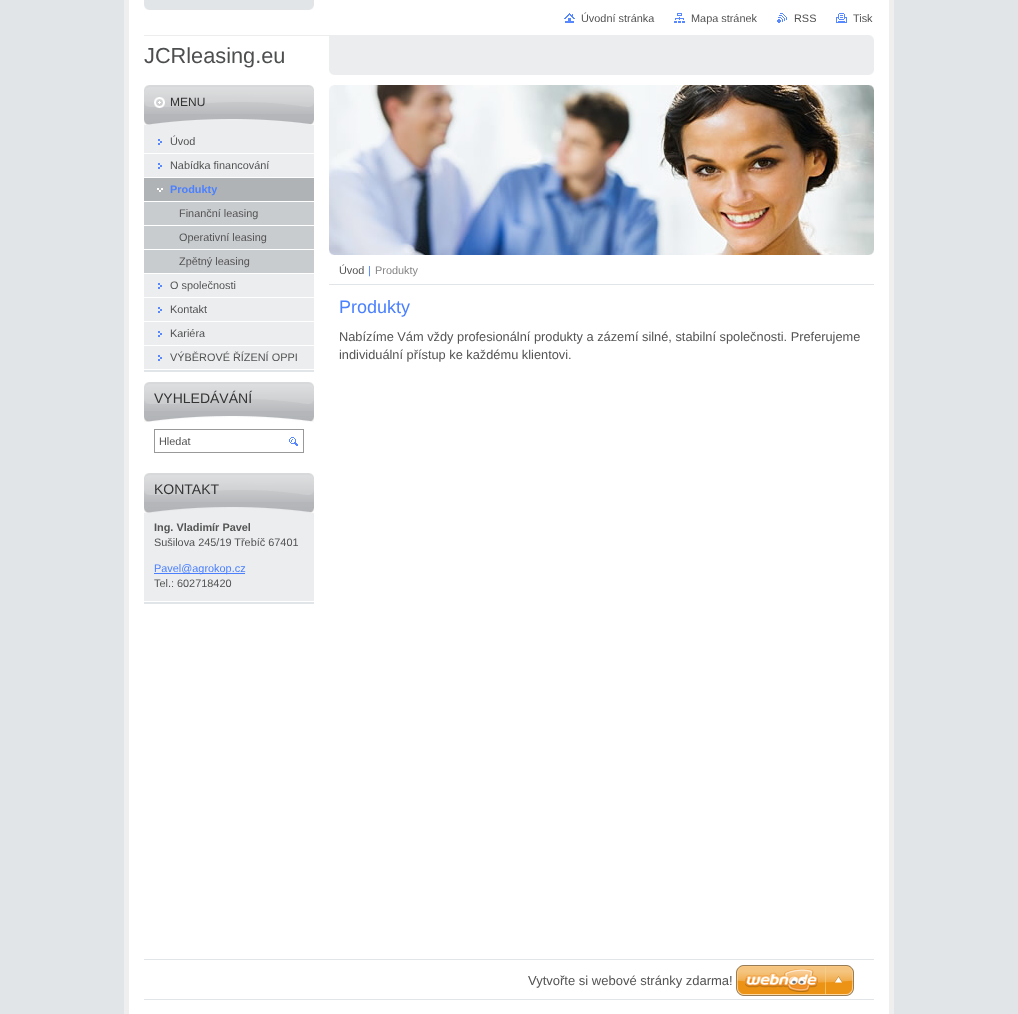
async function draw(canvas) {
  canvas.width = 1018
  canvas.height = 1014
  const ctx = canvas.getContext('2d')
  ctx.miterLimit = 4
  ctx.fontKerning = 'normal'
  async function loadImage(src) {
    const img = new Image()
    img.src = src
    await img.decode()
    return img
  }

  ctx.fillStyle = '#e2e5e8'
  ctx.fillRect(0, 0, 1018, 1014)
  ctx.fillStyle = '#fff'
  ctx.fillRect(129, 0, 760, 1014)
  ctx.drawImage(await loadImage('image0.png'), 144, 0, 170, 10)
  ctx.fillStyle = '#efefef'
  ctx.fillRect(889, 0, 5, 1014)
  ctx.fillRect(124, 0, 5, 1014)
  ctx.drawImage(await loadImage('image1.png'), 564, 13, 11, 10)
  ctx.font = '10.9px Liberation Sans'
  ctx.fillStyle = '#535353'
  ctx.fillText('Úvodní stránka', 581, 22)
  ctx.drawImage(await loadImage('image2.png'), 674, 13, 11, 10)
  ctx.fillText('Mapa stránek', 691, 22)
  ctx.drawImage(await loadImage('image3.png'), 777, 13, 10, 10)
  ctx.fillText('RSS', 794, 22)
  ctx.drawImage(await loadImage('image4.png'), 836, 13, 11, 10)
  ctx.fillText('Tisk', 853, 22)
  ctx.drawImage(await loadImage('image5.png'), 144, 35, 730, 6)
  ctx.font = '21.75px Liberation Sans'
  ctx.fillStyle = '#4d4e4f'
  ctx.fillText('JCRleasing.eu', 144, 63)
  ctx.fillStyle = '#ebedef'
  ctx.fillRect(329, 41, 545, 30)
  ctx.drawImage(await loadImage('image6.png'), 329, 71, 545, 4)
  ctx.fillStyle = '#e2e5e8'
  ctx.fillRect(144, 370, 170, 2)
  ctx.fillStyle = '#ebedef'
  ctx.fillRect(144, 125, 170, 244)
  ctx.fillStyle = '#b4b6b9'
  ctx.fillRect(144, 114, 170, 5)
  ctx.drawImage(await loadImage('image7.png'), 144, 85, 170, 29)
  ctx.drawImage(await loadImage('image8.png'), 144, 119, 170, 6)
  ctx.font = '12px Liberation Sans'
  ctx.fillStyle = '#333'
  ctx.fillText('MENU', 170, 106)
  ctx.drawImage(await loadImage('image9.png'), 158, 139, 4, 6)
  ctx.fillStyle = '#fff'
  ctx.fillRect(144, 153, 170, 1)
  ctx.font = '10.9px Liberation Sans'
  ctx.fillStyle = '#535353'
  ctx.fillText('Úvod', 170, 145)
  ctx.drawImage(await loadImage('image9.png'), 158, 163, 4, 6)
  ctx.fillStyle = '#fff'
  ctx.fillRect(144, 177, 170, 1)
  ctx.fillStyle = '#535353'
  ctx.fillText('Nabídka financování', 170, 169)
  ctx.fillStyle = '#b0b3b5'
  ctx.fillRect(144, 178, 170, 23)
  ctx.drawImage(await loadImage('image10.png'), 157, 188, 6, 4)
  ctx.fillStyle = '#fff'
  ctx.fillRect(144, 201, 170, 1)
  ctx.font = 'bold 10.9px Liberation Sans'
  ctx.fillStyle = '#4b80ff'
  ctx.fillText('Produkty', 170, 193)
  ctx.fillStyle = '#c9cccf'
  ctx.fillRect(144, 202, 170, 71)
  ctx.fillStyle = '#fff'
  ctx.fillRect(144, 225, 170, 1)
  ctx.font = '10.9px Liberation Sans'
  ctx.fillStyle = '#535353'
  ctx.fillText('Finanční leasing', 179, 217)
  ctx.fillStyle = '#fff'
  ctx.fillRect(144, 249, 170, 1)
  ctx.fillStyle = '#535353'
  ctx.fillText('Operativní leasing', 179, 241)
  ctx.fillStyle = '#fff'
  ctx.fillRect(144, 273, 170, 1)
  ctx.fillStyle = '#535353'
  ctx.fillText('Zpětný leasing', 179, 265)
  ctx.drawImage(await loadImage('image9.png'), 158, 283, 4, 6)
  ctx.fillStyle = '#fff'
  ctx.fillRect(144, 297, 170, 1)
  ctx.fillStyle = '#535353'
  ctx.fillText('O společnosti', 170, 289)
  ctx.drawImage(await loadImage('image9.png'), 158, 307, 4, 6)
  ctx.fillStyle = '#fff'
  ctx.fillRect(144, 321, 170, 1)
  ctx.fillStyle = '#535353'
  ctx.fillText('Kontakt', 170, 313)
  ctx.drawImage(await loadImage('image9.png'), 158, 331, 4, 6)
  ctx.fillStyle = '#fff'
  ctx.fillRect(144, 345, 170, 1)
  ctx.fillStyle = '#535353'
  ctx.fillText('Kariéra', 170, 337)
  ctx.drawImage(await loadImage('image9.png'), 158, 355, 4, 6)
  ctx.fillText('VÝBĚROVÉ ŘÍZENÍ OPPI', 170, 361)
  ctx.fillStyle = '#b4b6b9'
  ctx.fillRect(144, 411, 170, 6)
  ctx.drawImage(await loadImage('image11.png'), 144, 382, 170, 29)
  ctx.drawImage(await loadImage('image12.png'), 144, 416, 170, 6)
  ctx.font = '14px Liberation Sans'
  ctx.fillStyle = '#333'
  ctx.fillText('VYHLEDÁVÁNÍ', 154, 403)
  ctx.strokeStyle = '#999'
  ctx.strokeRect(154.5, 429.5, 149, 23)
  ctx.font = '10.9px Liberation Sans'
  ctx.fillStyle = '#535353'
  ctx.fillText('Hledat', 159, 445)
  ctx.drawImage(await loadImage('image13.png'), 289, 437, 9, 9)
  ctx.fillStyle = '#e2e5e8'
  ctx.fillRect(144, 602, 170, 2)
  ctx.fillStyle = '#ebedef'
  ctx.fillRect(144, 513, 170, 88)
  ctx.fillStyle = '#b4b6b9'
  ctx.fillRect(144, 502, 170, 6)
  ctx.drawImage(await loadImage('image14.png'), 144, 473, 170, 29)
  ctx.drawImage(await loadImage('image15.png'), 144, 507, 170, 6)
  ctx.font = '14px Liberation Sans'
  ctx.fillStyle = '#333'
  ctx.fillText('KONTAKT', 154, 494)
  ctx.font = 'bold 10.9px Liberation Sans'
  ctx.fillStyle = '#535353'
  ctx.fillText('Ing. Vladimír Pavel', 154, 531)
  ctx.font = '10.9px Liberation Sans'
  ctx.fillText('Sušilova 245/19 Třebíč 67401', 154, 546)
  ctx.fillStyle = '#4b7fff'
  ctx.fillRect(154, 573, 91, 1)
  ctx.fillStyle = '#4b80ff'
  ctx.fillText('Pavel@agrokop.cz', 154, 572)
  ctx.fillStyle = '#535353'
  ctx.fillText('Tel.: 602718420', 154, 587)
  ctx.drawImage(await loadImage('image16.png'), 329, 85, 545, 170)
  ctx.drawImage(await loadImage('image17.png'), 329, 85, 545, 170)
  ctx.fillStyle = '#e2e5e8'
  ctx.fillRect(329, 284, 545, 1)
  ctx.fillStyle = '#535353'
  ctx.fillText('Úvod', 339, 274)
  ctx.fillStyle = '#4b80ff'
  ctx.fillText('|', 368, 274)
  ctx.fillStyle = '#878787'
  ctx.fillText('Produkty', 375, 274)
  ctx.font = '18px Liberation Sans'
  ctx.fillStyle = '#4b80ff'
  ctx.fillText('Produkty', 339, 313)
  ctx.font = '12.8px Liberation Sans'
  ctx.fillStyle = '#535353'
  ctx.fillText('Nabízíme Vám vždy profesionální produkty a zázemí silné, stabilní společnosti. Preferujeme', 339, 341)
  ctx.fillText('individuální přístup ke každému klientovi.', 339, 359)
  ctx.fillStyle = '#e2e5e8'
  ctx.fillRect(144, 959, 730, 1)
  ctx.fillRect(144, 999, 730, 1)
  ctx.font = '13px Liberation Sans'
  ctx.fillStyle = '#535353'
  ctx.fillText('Vytvořte si webové stránky zdarma!', 528, 985)
  ctx.drawImage(await loadImage('image18.png'), 736, 965, 118, 31)
}

draw(document.querySelector('canvas'))
